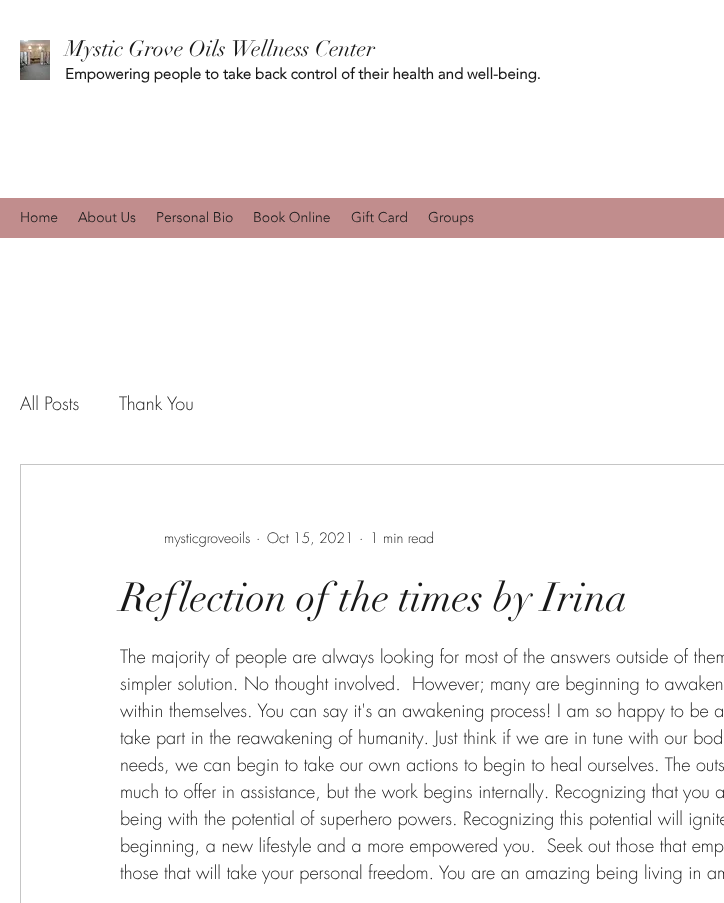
async function draw(canvas) {
  canvas.width = 724
  canvas.height = 903
  const ctx = canvas.getContext('2d')
  ctx.miterLimit = 4
  ctx.fontKerning = 'normal'
  async function loadImage(src) {
    const img = new Image()
    img.src = src
    await img.decode()
    return img
  }

  ctx.fillStyle = '#fff'
  ctx.fillRect(0, 0, 724, 903)
  ctx.drawImage(await loadImage('image0.png'), 20, 40, 30, 40)
  ctx.font = '22px didot'
  ctx.fillStyle = '#181818'
  ctx.fillText('Mystic Grove Oils Wellness Center', 65, 56)
  ctx.font = 'bold 15px "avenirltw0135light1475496"'
  ctx.fillText('Empowering people to take back control of their health and well-being.', 65, 79)
  ctx.fillStyle = '#c18d8d'
  ctx.fillRect(0, 198, 724, 40)
  ctx.font = '300 14px "avenirltw0135light1475496"'
  ctx.fillStyle = '#181818'
  ctx.fillText('Home', 20, 222)
  ctx.fillText('About Us', 78, 222)
  ctx.fillText('Personal Bio', 156, 222)
  ctx.fillText('Book Online', 253, 222)
  ctx.fillText('Gift Card', 351, 222)
  ctx.fillText('Groups', 428, 222)
  ctx.font = '300 18px futura'
  ctx.fillText('All Posts', 20, 410)
  ctx.fillText('Thank You', 119, 410)
  ctx.strokeStyle = '#c5c5c5'
  ctx.strokeRect(20.5, 464.5, 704, 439)
  ctx.font = '300 14px futura'
  ctx.fillText('mysticgroveoils', 164, 543)
  ctx.fillText('·', 256, 543)
  ctx.fillText('Oct 15, 2021', 267, 543)
  ctx.fillText('·', 359, 543)
  ctx.fillText('1 min read', 370, 543)
  ctx.font = '40px didot'
  ctx.fillText('Reflection of the times by Irina', 120, 611)
  ctx.font = '300 18px futura'
  ctx.fillText('The majority of people are always looking for most of the answers outside of them', 120, 663)
  ctx.fillText('simpler solution. No thought involved.  However; many are beginning to awaken', 120, 690)
  ctx.fillText('within themselves. You can say it\'s an awakening process! I am so happy to be a', 120, 717)
  ctx.fillText('take part in the reawakening of humanity. Just think if we are in tune with our bod', 120, 744)
  ctx.fillText('needs, we can begin to take our own actions to begin to heal ourselves. The outs', 120, 771)
  ctx.fillText('much to offer in assistance, but the work begins internally. Recognizing that you a', 120, 798)
  ctx.fillText('being with the potential of superhero powers. Recognizing this potential will ignite', 120, 825)
  ctx.fillText('beginning, a new lifestyle and a more empowered you.  Seek out those that emp', 120, 852)
  ctx.fillText('those that will take your personal freedom. You are an amazing being living in am', 120, 879)
}

draw(document.querySelector('canvas'))
